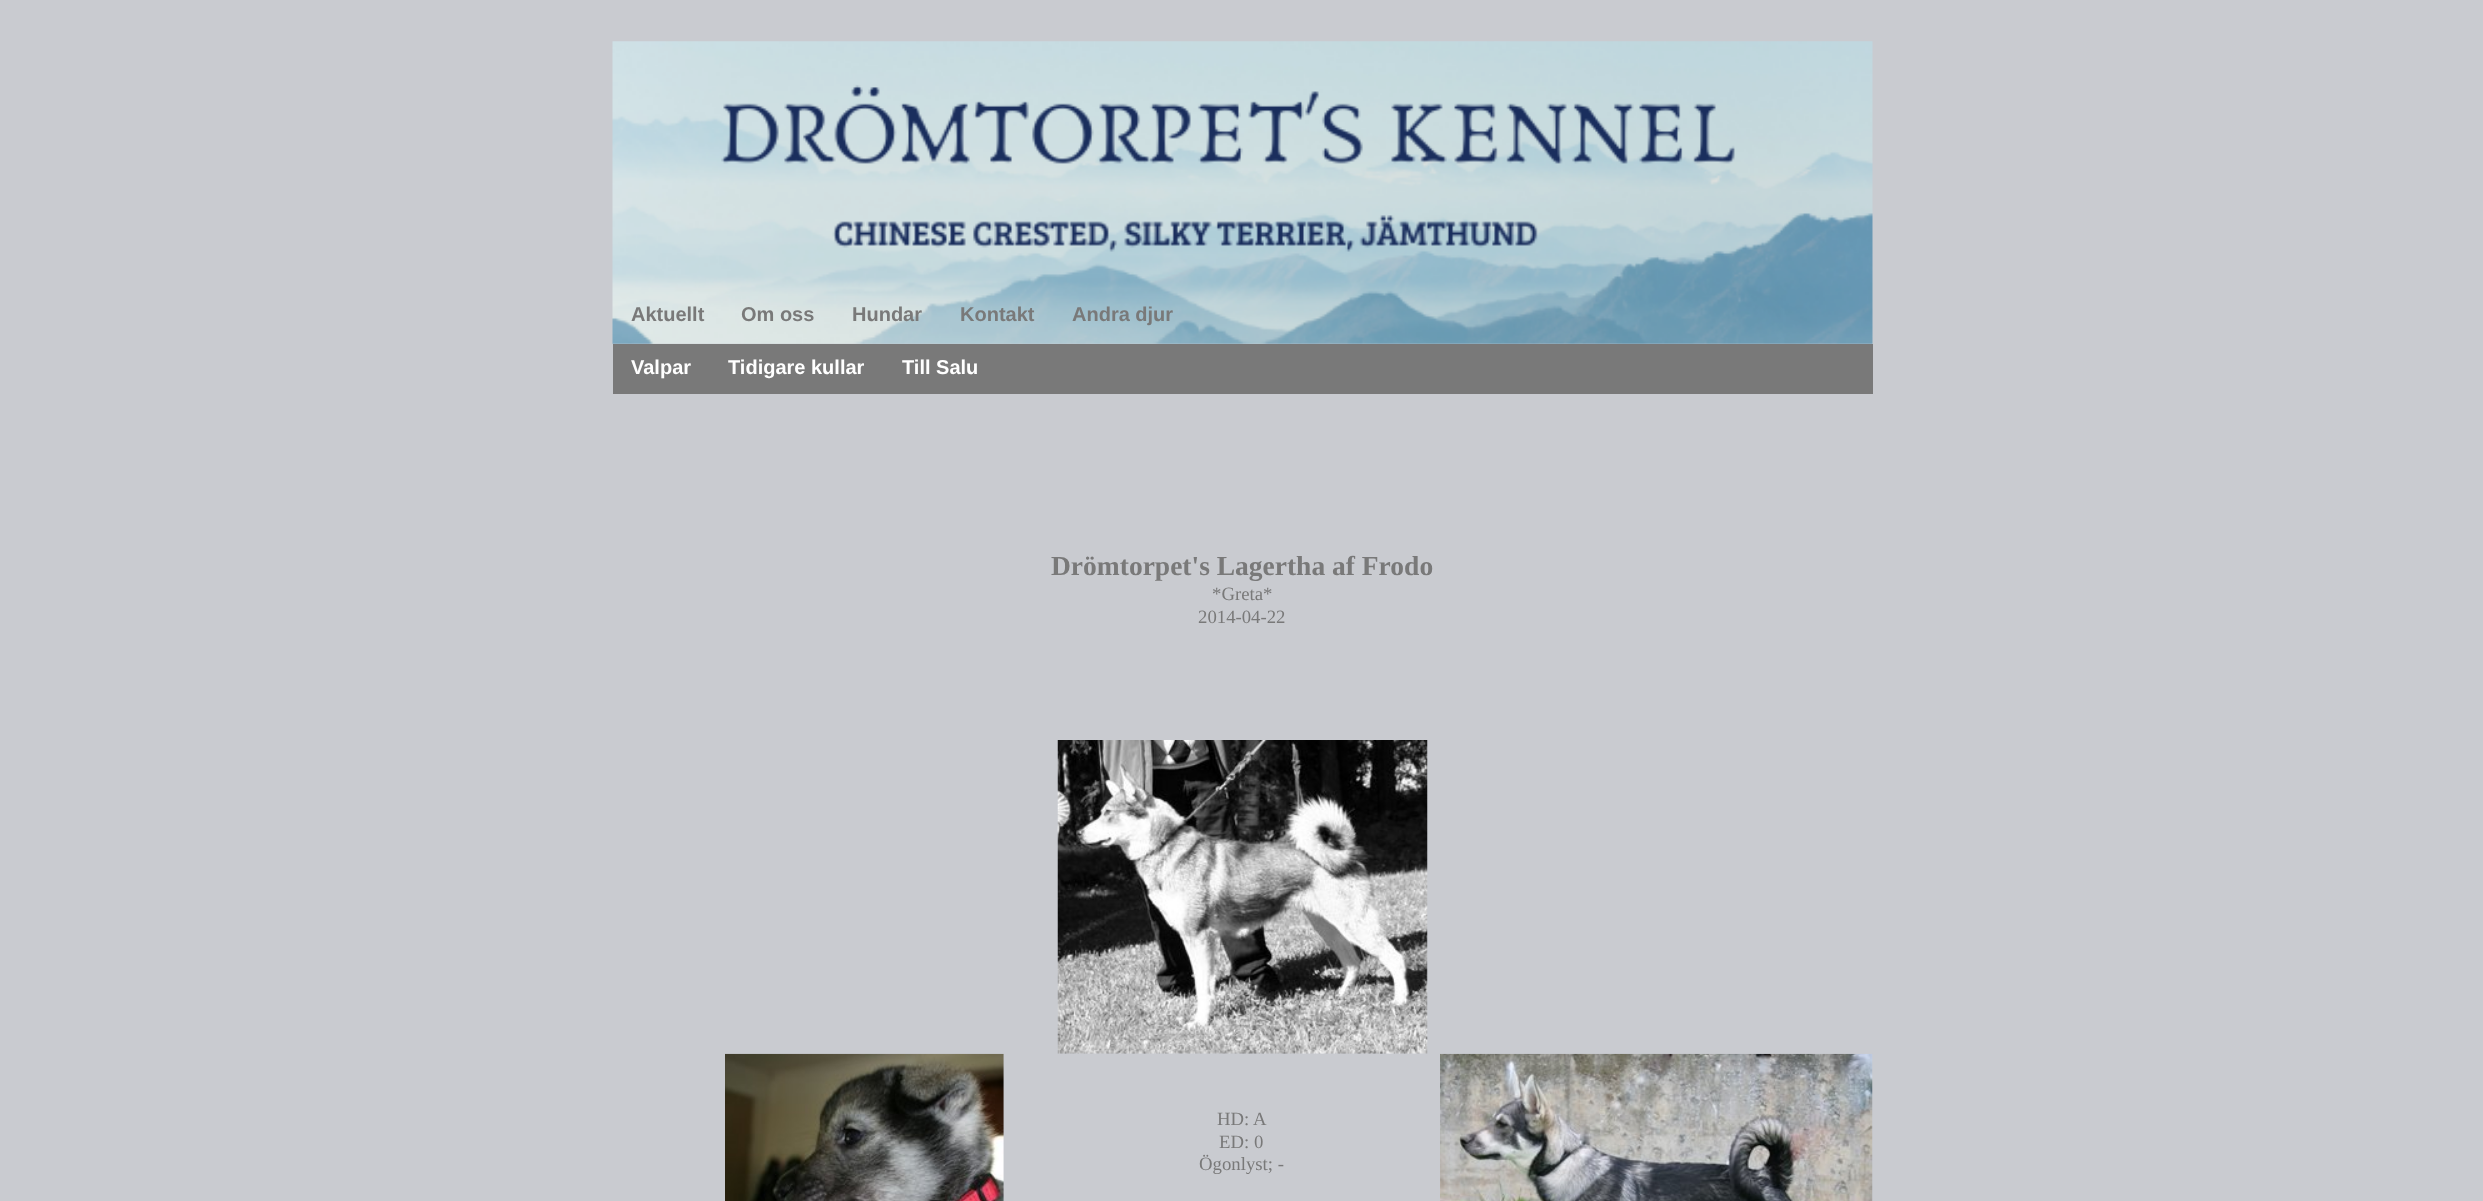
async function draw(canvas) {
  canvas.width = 2483
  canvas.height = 1201
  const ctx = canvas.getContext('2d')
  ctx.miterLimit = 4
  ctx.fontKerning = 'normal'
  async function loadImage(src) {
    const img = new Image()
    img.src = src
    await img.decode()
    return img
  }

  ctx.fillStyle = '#c9cbd0'
  ctx.fillRect(0, 0, 2483, 1201)
  ctx.drawImage(await loadImage('image0.png'), 612, 41, 1261, 303)
  ctx.font = 'bold 20px Liberation Sans'
  ctx.fillStyle = '#797979'
  ctx.fillText('Aktuellt', 631, 321)
  ctx.fillText('Om oss', 741, 321)
  ctx.fillText('Hundar', 852, 321)
  ctx.fillText('Kontakt', 960, 321)
  ctx.fillText('Andra djur', 1072, 321)
  ctx.fillRect(613, 344, 1260, 50)
  ctx.fillStyle = '#fff'
  ctx.fillText('Valpar', 631, 374)
  ctx.fillText('Tidigare kullar', 728, 374)
  ctx.fillText('Till Salu', 902, 374)
  ctx.font = 'bold 27.5px Liberation Serif'
  ctx.fillStyle = '#797979'
  ctx.fillText('Drömtorpet\'s Lagertha af Frodo', 1051, 575)
  ctx.font = '18.75px Liberation Serif'
  ctx.fillText('*Greta*', 1212, 600)
  ctx.fillText('2014-04-22', 1198, 623)
  ctx.drawImage(await loadImage('image1.png'), 1057, 740, 371, 314)
  ctx.drawImage(await loadImage('image2.png'), 725, 1053, 279, 148)
  ctx.fillText('HD: A', 1217, 1125)
  ctx.fillText('ED: 0', 1219, 1148)
  ctx.fillText('Ögonlyst; -', 1199, 1170)
  ctx.drawImage(await loadImage('image3.png'), 1440, 1053, 433, 148)
}

draw(document.querySelector('canvas'))
